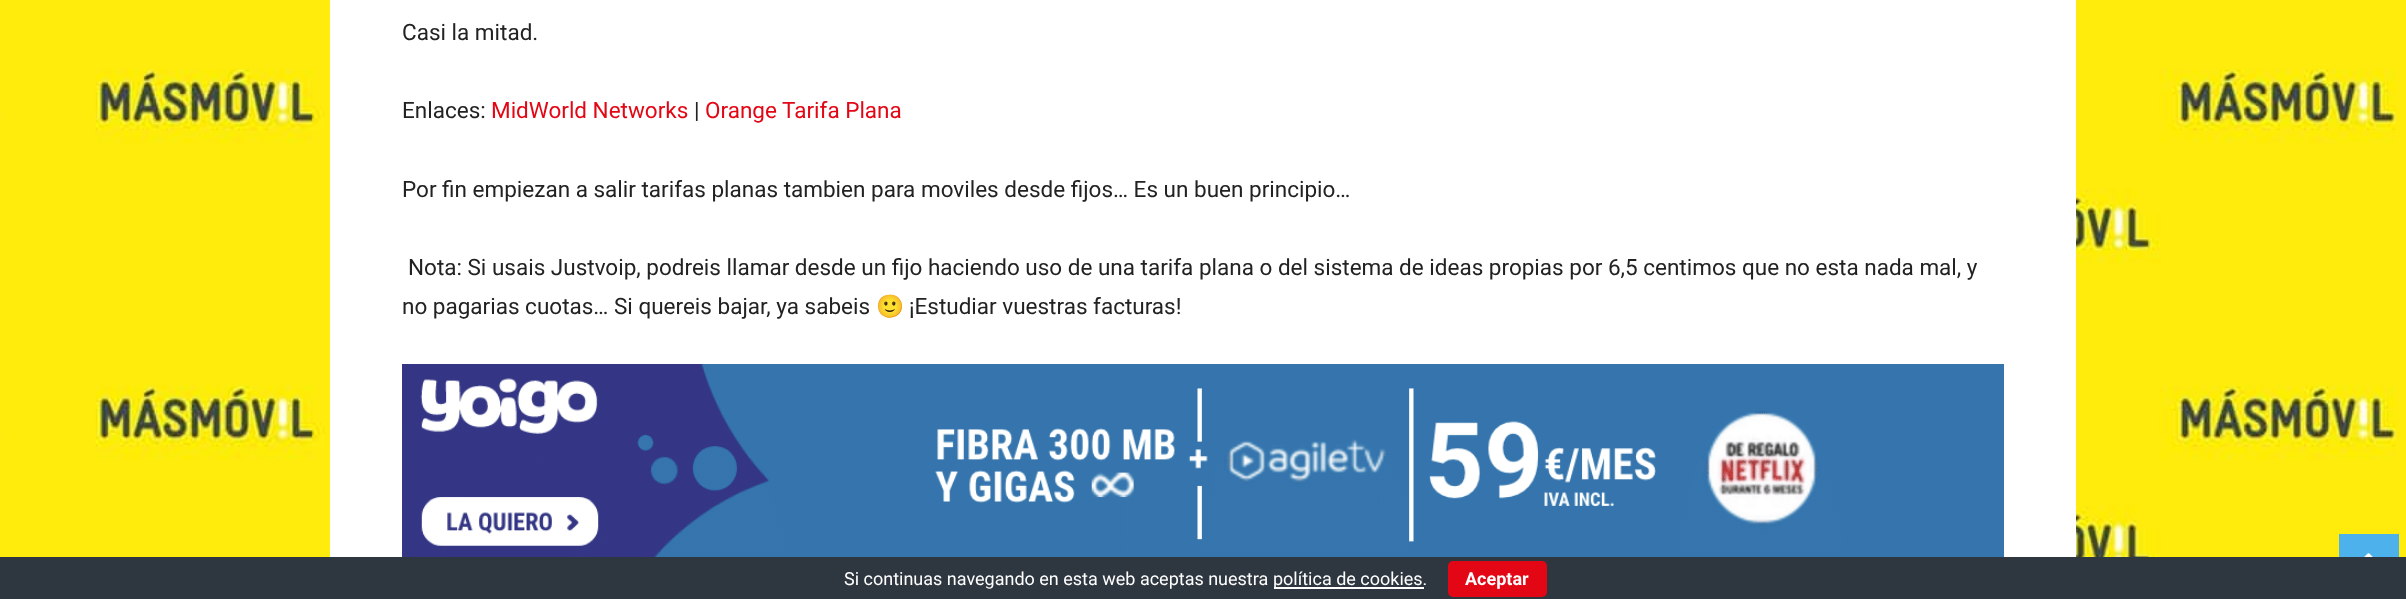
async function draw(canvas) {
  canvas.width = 2406
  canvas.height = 599
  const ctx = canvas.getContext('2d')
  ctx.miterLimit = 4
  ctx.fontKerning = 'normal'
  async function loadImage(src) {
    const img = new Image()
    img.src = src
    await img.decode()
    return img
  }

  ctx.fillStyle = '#fff'
  ctx.fillRect(0, 0, 2406, 599)
  ctx.drawImage(await loadImage('image0.png'), 0, 0, 2406, 557)
  ctx.fillRect(330, 0, 1746, 557)
  ctx.font = '22.5px Roboto'
  ctx.fillStyle = '#222'
  ctx.fillText('Casi la mitad.', 402, 40)
  ctx.fillText('Enlaces:', 402, 118)
  ctx.fillStyle = '#e30614'
  ctx.fillText('MidWorld Networks', 491, 118)
  ctx.fillStyle = '#222'
  ctx.fillText('|', 694, 118)
  ctx.fillStyle = '#e30614'
  ctx.fillText('Orange Tarifa Plana', 705, 118)
  ctx.fillStyle = '#222'
  ctx.fillText('Por fin empiezan a salir tarifas planas tambien para moviles desde fijos… Es un buen principio…', 402, 197)
  ctx.fillText('Nota: Si usais Justvoip, podreis llamar desde un fijo haciendo uso de una tarifa plana o del sistema de ideas propias por 6,5 centimos que no esta nada mal, y', 408, 275)
  ctx.fillText('no pagarias cuotas… Si quereis bajar, ya sabeis', 402, 314)
  ctx.font = '22.5px Noto Color Emoji'
  ctx.fillText('🙂', 876, 314)
  ctx.font = '22.5px Roboto'
  ctx.fillText('¡Estudiar vuestras facturas!', 909, 314)
  ctx.drawImage(await loadImage('image1.png'), 402, 364, 1602, 193)
  ctx.fillStyle = '#4db2ec'
  ctx.fillRect(2339, 534, 60, 23)
  ctx.drawImage(await loadImage('image2.png'), 2364, 553, 9, 4)
  ctx.fillStyle = '#2e363f'
  ctx.fillRect(0, 557, 2406, 42)
  ctx.font = '18px Roboto'
  ctx.fillStyle = '#fff'
  ctx.fillText('Si continuas navegando en esta web aceptas nuestra', 844, 585)
  ctx.fillRect(1274, 587, 150, 2)
  ctx.fillText('política de cookies.', 1273, 585)
  ctx.fillStyle = '#e30614'
  ctx.beginPath()
  ctx.roundRect(1448, 561, 99, 36, 5)
  ctx.fill()
  ctx.font = 'bold 18px Roboto'
  ctx.fillStyle = '#fff'
  ctx.fillText('Aceptar', 1465, 585)
}

draw(document.querySelector('canvas'))
